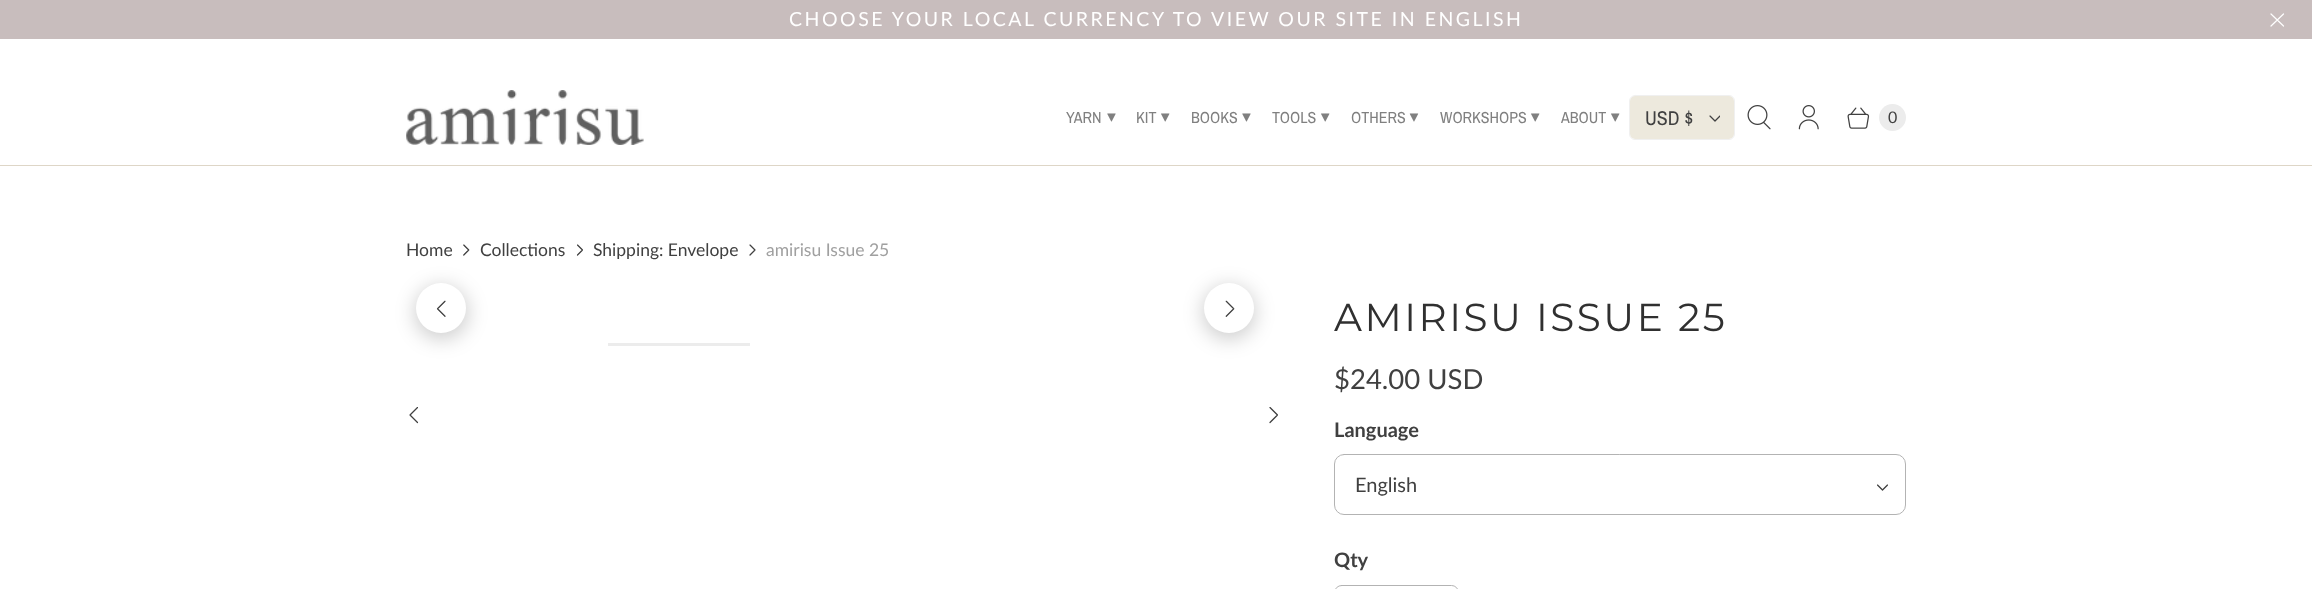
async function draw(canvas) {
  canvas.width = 2312
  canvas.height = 589
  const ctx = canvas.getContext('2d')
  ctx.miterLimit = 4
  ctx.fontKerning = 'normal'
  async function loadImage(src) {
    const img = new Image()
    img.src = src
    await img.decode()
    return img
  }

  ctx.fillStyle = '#fff'
  ctx.fillRect(0, 0, 2312, 589)
  ctx.fillStyle = '#c8bdbd'
  ctx.fillRect(0, 0, 2312, 39)
  ctx.letterSpacing = '2.5px'
  ctx.font = '19.5px Lato'
  ctx.fillStyle = '#fff'
  ctx.fillText('CHOOSE YOUR LOCAL CURRENCY TO VIEW OUR SITE IN ENGLISH', 789, 26)
  ctx.beginPath()
  ctx.moveTo(2271, 26)
  ctx.lineTo(2283.5, 14)
  ctx.moveTo(2271, 14)
  ctx.lineTo(2283.5, 26)
  ctx.strokeStyle = '#fff'
  ctx.lineWidth = 1.2
  ctx.lineCap = 'round'
  ctx.lineJoin = 'round'
  ctx.stroke()
  ctx.fillStyle = '#ded6c7'
  ctx.fillRect(0, 165, 2312, 1)
  ctx.drawImage(await loadImage('image0.png'), 406, 90, 238, 55)
  ctx.letterSpacing = '0px'
  ctx.font = '16px Archivo Narrow'
  ctx.fillStyle = '#808080'
  ctx.fillText('YARN', 1066, 123)
  ctx.drawImage(await loadImage('image1.png'), 1107, 113, 9, 9)
  ctx.fillText('KIT', 1136, 123)
  ctx.drawImage(await loadImage('image2.png'), 1161, 113, 9, 9)
  ctx.fillText('BOOKS', 1191, 123)
  ctx.drawImage(await loadImage('image1.png'), 1242, 113, 9, 9)
  ctx.fillText('TOOLS', 1272, 123)
  ctx.drawImage(await loadImage('image2.png'), 1321, 113, 9, 9)
  ctx.fillText('OTHERS', 1351, 123)
  ctx.drawImage(await loadImage('image3.png'), 1409, 113, 10, 9)
  ctx.fillText('WORKSHOPS', 1440, 123)
  ctx.drawImage(await loadImage('image2.png'), 1531, 113, 9, 9)
  ctx.fillText('ABOUT', 1561, 123)
  ctx.drawImage(await loadImage('image2.png'), 1611, 113, 9, 9)
  ctx.fillStyle = '#ede9dd'
  ctx.beginPath()
  ctx.roundRect(1630, 96, 104, 43, 5)
  ctx.fill()
  ctx.beginPath()
  ctx.roundRect(1629.5, 95.5, 105, 44, 5.5)
  ctx.strokeStyle = '#f0f0f0'
  ctx.lineWidth = 1
  ctx.lineJoin = 'miter'
  ctx.stroke()
  ctx.font = '20px Archivo Narrow'
  ctx.fillStyle = '#404040'
  ctx.fillText('USD $', 1645, 125)
  ctx.drawImage(await loadImage('image4.png'), 1709, 115, 11, 7)
  ctx.drawImage(await loadImage('image5.png'), 1747, 105, 24, 25)
  ctx.drawImage(await loadImage('image6.png'), 1798, 105, 21, 25)
  ctx.drawImage(await loadImage('image7.png'), 1847, 107, 23, 22)
  ctx.fillStyle = '#ececec'
  ctx.beginPath()
  ctx.arc(1892.5, 117.5, 13.5, 0, 2 * Math.PI)
  ctx.fill()
  ctx.font = '16px Lato'
  ctx.fillStyle = '#404040'
  ctx.fillText('0', 1888, 123)
  ctx.font = '17.5px Lato'
  ctx.fillText('Home', 406, 256)
  ctx.drawImage(await loadImage('image8.png'), 463, 244, 7, 12)
  ctx.fillText('Collections', 480, 256)
  ctx.drawImage(await loadImage('image9.png'), 576, 244, 7, 12)
  ctx.fillText('Shipping: Envelope', 593, 256)
  ctx.drawImage(await loadImage('image10.png'), 749, 244, 7, 12)
  ctx.fillStyle = '#a0a0a0'
  ctx.fillText('amirisu Issue 25', 766, 256)
  ctx.fillStyle = '#00000033'
  ctx.filter = 'blur(10px)'
  ctx.beginPath()
  ctx.roundRect(415, 286, 53, 53, 26.5)
  ctx.fill()
  ctx.filter = 'none'
  ctx.fillStyle = '#fff'
  ctx.beginPath()
  ctx.arc(441, 308, 25, 0, 2 * Math.PI)
  ctx.fill()
  ctx.drawImage(await loadImage('image11.png'), 436, 300, 10, 17)
  ctx.fillStyle = '#00000033'
  ctx.filter = 'blur(10px)'
  ctx.beginPath()
  ctx.roundRect(1203, 286, 52, 53, 26)
  ctx.fill()
  ctx.filter = 'none'
  ctx.fillStyle = '#fff'
  ctx.beginPath()
  ctx.arc(1229, 308, 25, 0, 2 * Math.PI)
  ctx.fill()
  ctx.drawImage(await loadImage('image12.png'), 1225, 300, 10, 17)
  ctx.fillStyle = '#ececec'
  ctx.fillRect(608, 343, 142, 3)
  ctx.drawImage(await loadImage('image13.png'), 409, 407, 10, 17)
  ctx.drawImage(await loadImage('image14.png'), 1269, 407, 9, 17)
  ctx.letterSpacing = '2.5px'
  ctx.font = '39px Montserrat'
  ctx.fillStyle = '#303030'
  ctx.fillText('AMIRISU ISSUE 25', 1334, 331)
  ctx.letterSpacing = '0px'
  ctx.font = '27.5px Lato'
  ctx.fillStyle = '#404040'
  ctx.fillText('$24.00 USD', 1334, 389)
  ctx.font = 'bold 20px Lato'
  ctx.fillText('Language', 1334, 437)
  ctx.beginPath()
  ctx.roundRect(1334.5, 454.5, 571, 60, 9.5)
  ctx.strokeStyle = '#b3b3b3'
  ctx.stroke()
  ctx.font = '20px Lato'
  ctx.fillText('English', 1355, 492)
  ctx.drawImage(await loadImage('image15.png'), 1877, 484, 11, 7)
  ctx.font = 'bold 20px Lato'
  ctx.fillText('Qty', 1334, 567)
  ctx.beginPath()
  ctx.roundRect(1334.5, 585.5, 124, 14, 9.5)
  ctx.stroke()
}

draw(document.querySelector('canvas'))
